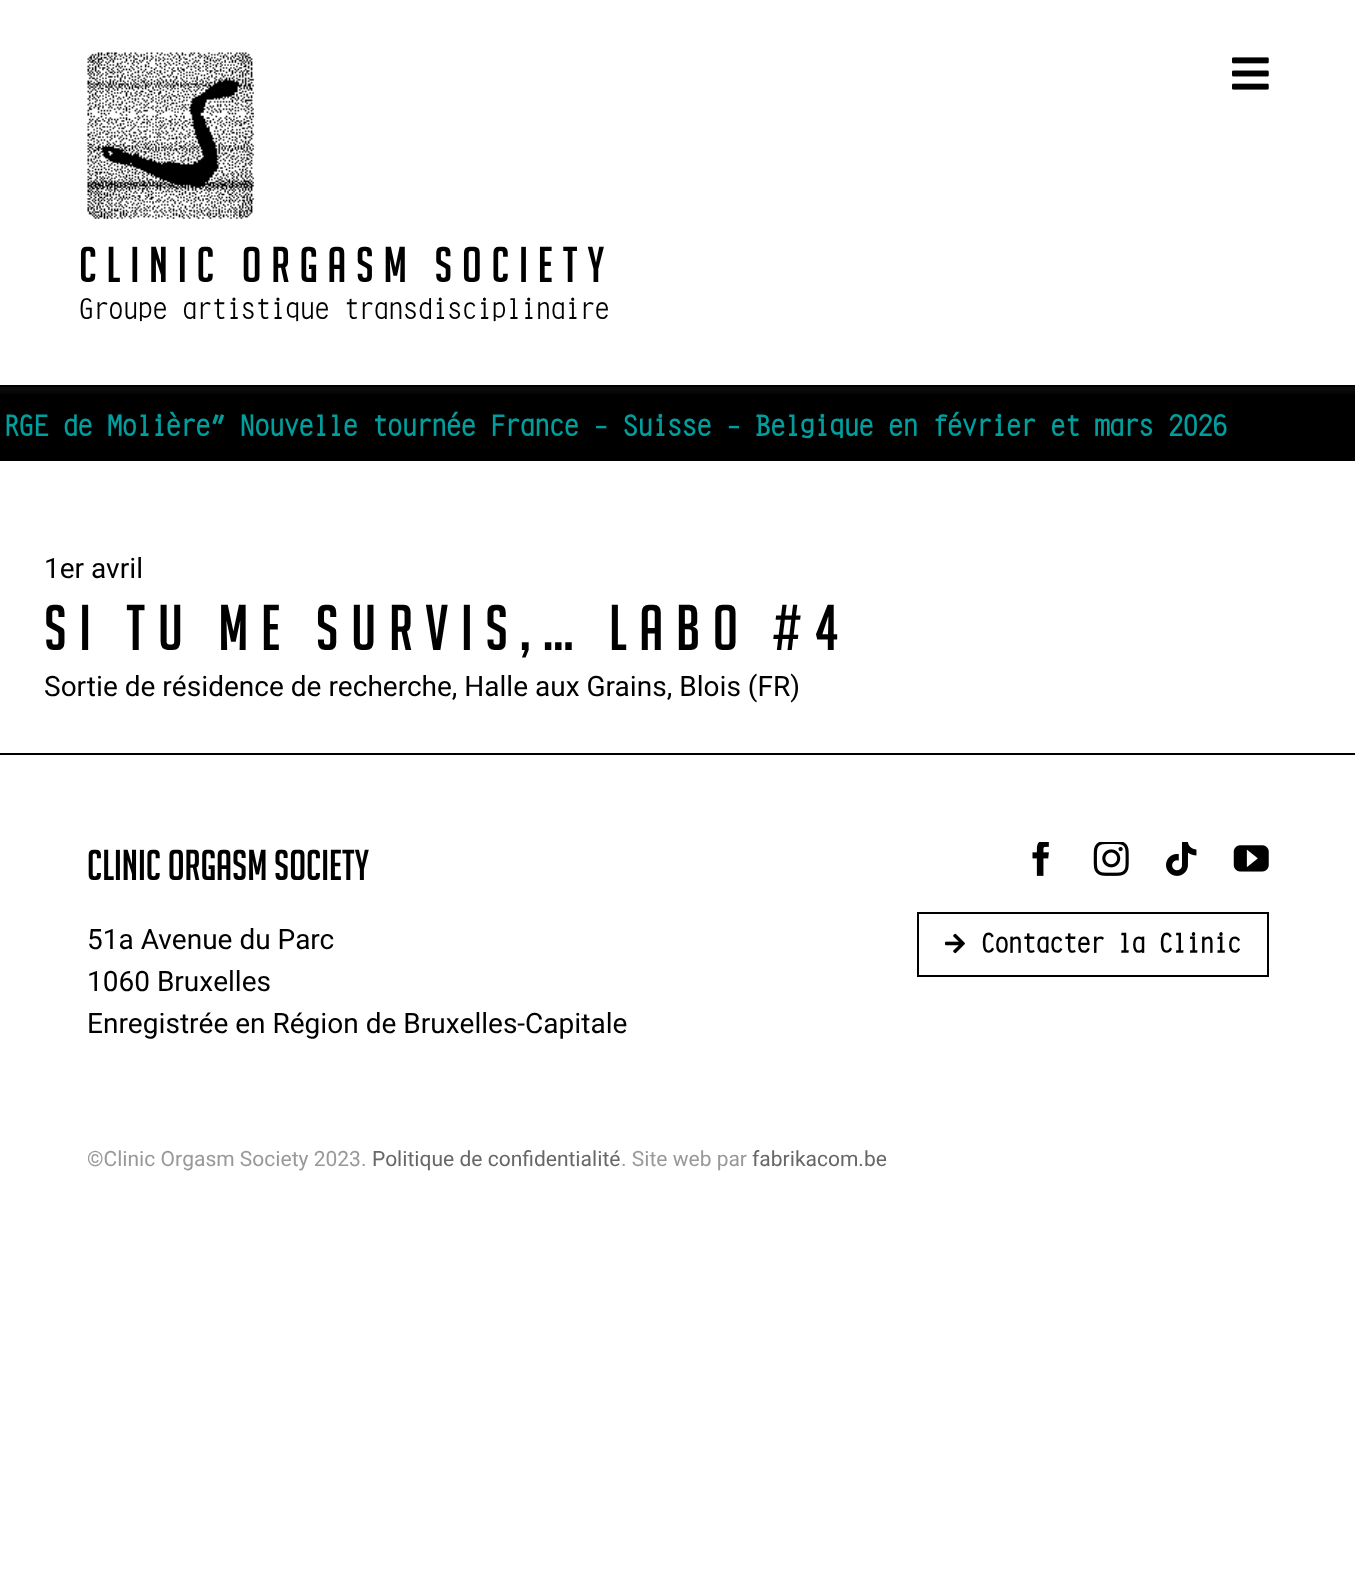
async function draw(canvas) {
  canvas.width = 1355
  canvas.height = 1576
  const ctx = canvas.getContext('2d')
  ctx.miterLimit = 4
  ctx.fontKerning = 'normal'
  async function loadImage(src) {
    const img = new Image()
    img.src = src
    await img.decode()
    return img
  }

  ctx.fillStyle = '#fff'
  ctx.fillRect(0, 0, 1355, 1576)
  ctx.fillStyle = '#000'
  ctx.fillRect(0, 387, 1355, 74)
  ctx.save()
  ctx.beginPath()
  ctx.rect(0, 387, 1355, 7)
  ctx.clip()
  ctx.fillStyle = '#8989891a'
  ctx.filter = 'blur(2.5px)'
  ctx.beginPath()
  ctx.rect(-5, -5, 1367, 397)
  ctx.fill()
  ctx.filter = 'none'
  ctx.restore()
  ctx.fillRect(0, 385, 1355, 2)
  ctx.drawImage(await loadImage('image0.png'), 87, 52, 167, 167)
  ctx.drawImage(await loadImage('image1.png'), 1232, 57, 37, 33)
  ctx.letterSpacing = '9.8px'
  ctx.font = '49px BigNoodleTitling'
  ctx.fillText('Clinic Orgasm Society', 79, 282)
  ctx.letterSpacing = '0px'
  ctx.font = '24.5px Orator'
  ctx.fillText('Groupe artistique transdisciplinaire', 79, 316)
  ctx.font = 'bold 24.5px Orator'
  ctx.fillStyle = '#009e9d'
  ctx.fillText('RGE de Molière” Nouvelle tournée France - Suisse - Belgique en février et mars 2026', 4, 433)
  ctx.font = '28px Heebo'
  ctx.fillStyle = '#000'
  ctx.fillText('1er avril', 44, 578)
  ctx.letterSpacing = '12.6px'
  ctx.font = '63px BigNoodleTitling'
  ctx.fillText('Si tu me survis,… LABO #4', 44, 650)
  ctx.letterSpacing = '0px'
  ctx.font = '28px Heebo'
  ctx.fillText('Sortie de résidence de recherche, Halle aux Grains, Blois (FR)', 44, 696)
  ctx.fillRect(0, 753, 1355, 2)
  ctx.font = '42px BigNoodleTitling'
  ctx.fillText('CLINIC ORGASM SOCIETY', 87, 880)
  ctx.font = '28px Heebo'
  ctx.fillText('51a Avenue du Parc', 87, 949)
  ctx.fillText('1060 Bruxelles', 87, 991)
  ctx.fillText('Enregistrée en Région de Bruxelles-Capitale', 87, 1033)
  ctx.drawImage(await loadImage('image2.png'), 1032, 842, 17, 34)
  ctx.drawImage(await loadImage('image3.png'), 1093, 842, 36, 34)
  ctx.drawImage(await loadImage('image4.png'), 1166, 842, 31, 34)
  ctx.drawImage(await loadImage('image5.png'), 1233, 845, 36, 27)
  ctx.strokeStyle = '#000'
  ctx.lineWidth = 2
  ctx.strokeRect(918, 913, 350, 63)
  ctx.drawImage(await loadImage('image6.png'), 945, 933, 20, 21)
  ctx.font = 'bold 22.75px Orator'
  ctx.fillText('Contacter la Clinic', 981, 950)
  ctx.font = '21px Heebo'
  ctx.fillStyle = '#999'
  ctx.fillText('©Clinic Orgasm Society 2023.', 87, 1166)
  ctx.fillStyle = '#676767'
  ctx.fillText('Politique de confidentialité', 372, 1166)
  ctx.fillStyle = '#999'
  ctx.fillText('. Site web par', 621, 1166)
  ctx.fillStyle = '#676767'
  ctx.fillText('fabrikacom.be', 752, 1166)
}

draw(document.querySelector('canvas'))
